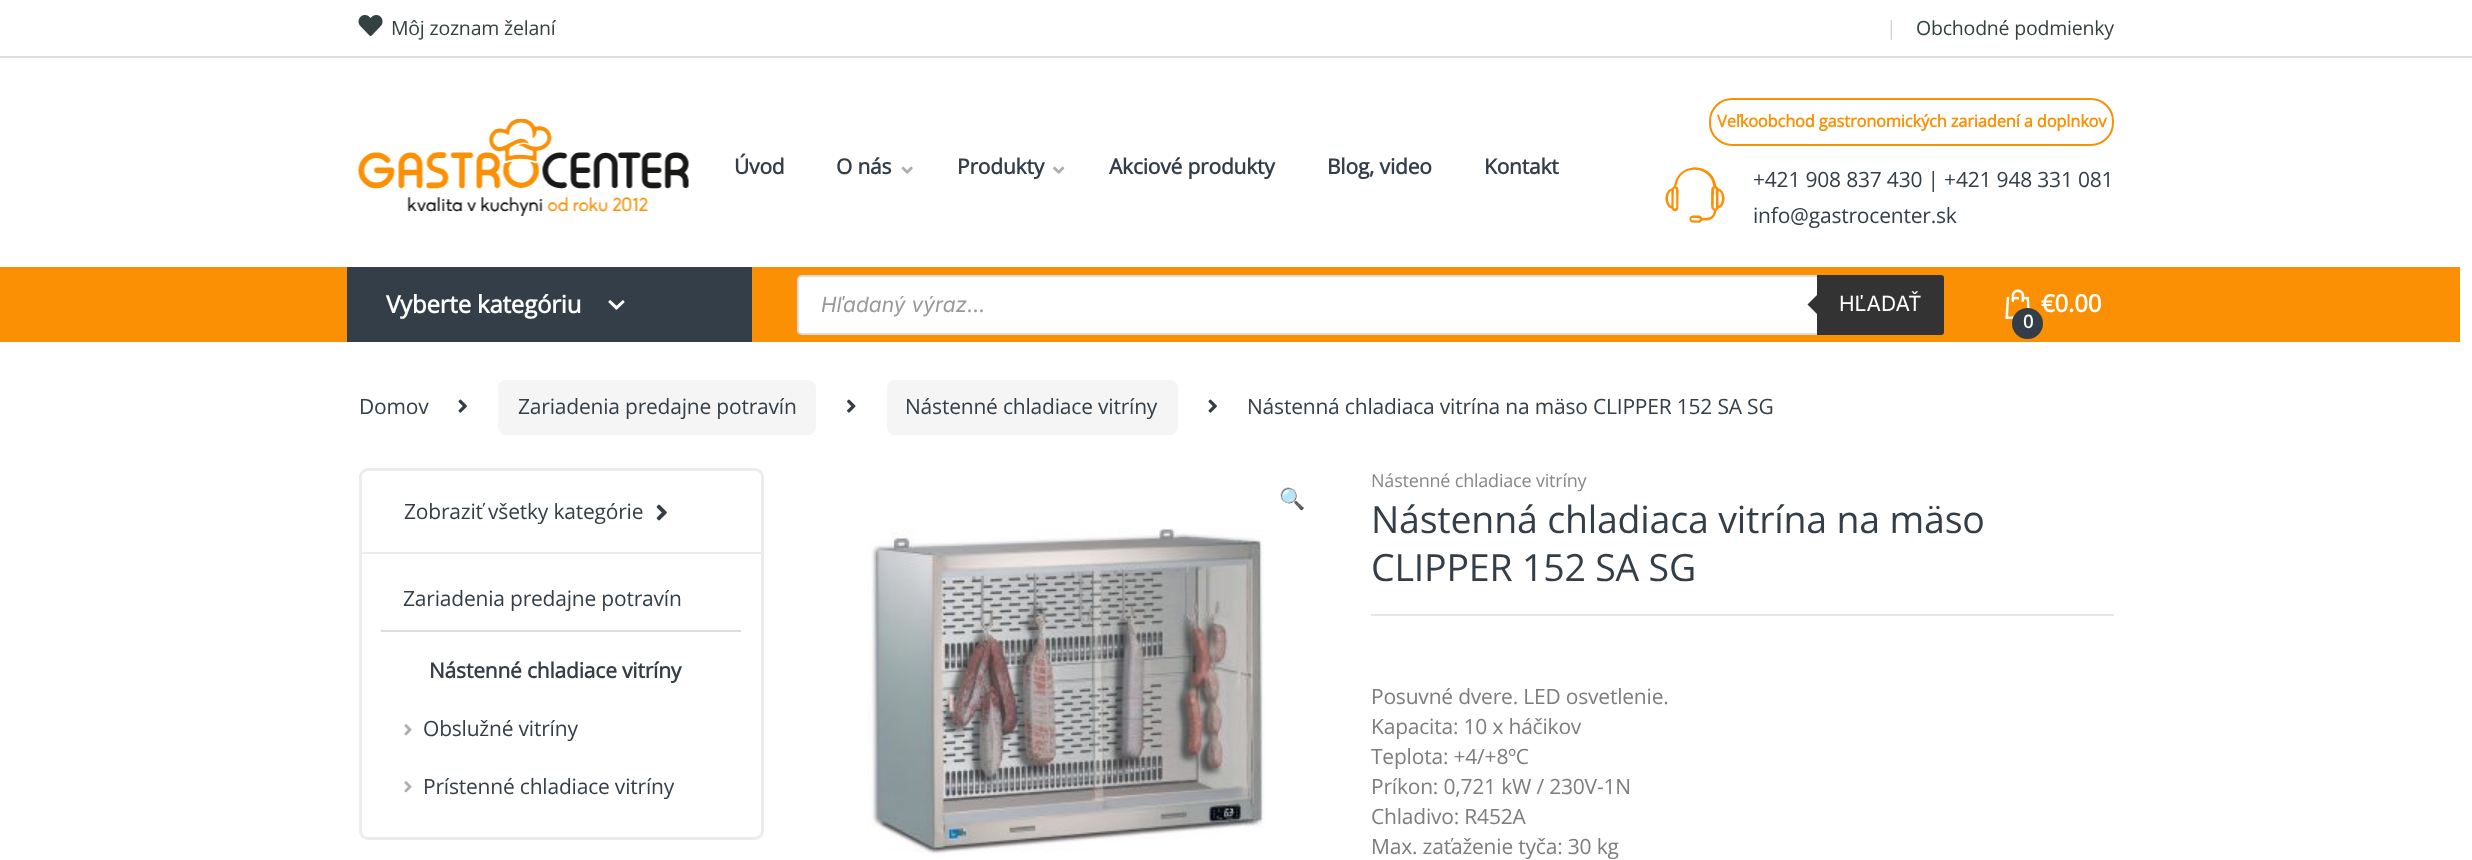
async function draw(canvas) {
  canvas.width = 2472
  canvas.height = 860
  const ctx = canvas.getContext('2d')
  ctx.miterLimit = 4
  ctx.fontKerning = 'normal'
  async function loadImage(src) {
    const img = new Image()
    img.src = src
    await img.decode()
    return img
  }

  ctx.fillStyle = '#fff'
  ctx.fillRect(0, 0, 2472, 860)
  ctx.fillStyle = '#ddd'
  ctx.fillRect(0, 56, 2472, 2)
  ctx.drawImage(await loadImage('image0.png'), 358, 15, 25, 21)
  ctx.letterSpacing = '-0.2px'
  ctx.font = '19.5px Open Sans'
  ctx.fillStyle = '#334141'
  ctx.fillText('Môj zoznam želaní', 391, 35)
  ctx.fillStyle = '#cad5d5'
  ctx.fillText('|', 1886, 35)
  ctx.fillStyle = '#334141'
  ctx.fillText('Obchodné podmienky', 1916, 35)
  ctx.drawImage(await loadImage('image1.png'), 358, 119, 331, 97)
  ctx.font = 'bold 21px Open Sans'
  ctx.fillStyle = '#333e48'
  ctx.fillText('Úvod', 734, 174)
  ctx.fillText('O nás', 836, 174)
  ctx.drawImage(await loadImage('image2.png'), 901, 166, 12, 8)
  ctx.fillText('Produkty', 957, 174)
  ctx.drawImage(await loadImage('image3.png'), 1053, 166, 12, 8)
  ctx.fillText('Akciové produkty', 1109, 174)
  ctx.fillText('Blog, video', 1327, 174)
  ctx.fillText('Kontakt', 1484, 174)
  ctx.beginPath()
  ctx.roundRect(1710, 99, 403, 46, 22)
  ctx.strokeStyle = '#fb9004'
  ctx.lineWidth = 2
  ctx.stroke()
  ctx.font = 'bold 16.5px Open Sans'
  ctx.fillStyle = '#fb9004'
  ctx.fillText('Veľkoobchod gastronomických zariadení a doplnkov', 1717, 127)
  ctx.drawImage(await loadImage('image4.png'), 1665, 167, 60, 56)
  ctx.font = '21px Open Sans'
  ctx.fillStyle = '#333e48'
  ctx.fillText('+421 908 837 430 | +421 948 331 081', 1753, 187)
  ctx.fillText('info@gastrocenter.sk', 1753, 223)
  ctx.fillStyle = '#fb9004'
  ctx.fillRect(0, 267, 2460, 75)
  ctx.fillStyle = '#333e48'
  ctx.fillRect(347, 267, 405, 75)
  ctx.font = 'bold 24px Open Sans'
  ctx.fillStyle = '#fff'
  ctx.fillText('Vyberte kategóriu', 386, 313)
  ctx.drawImage(await loadImage('image5.png'), 608, 300, 17, 10)
  ctx.beginPath()
  ctx.roundRect(798, 276, 1145, 58, 4)
  ctx.fill()
  ctx.strokeStyle = '#ddd'
  ctx.stroke()
  ctx.letterSpacing = '0px'
  ctx.font = 'italic 21px Inter'
  ctx.fillStyle = '#999'
  ctx.fillText('Hľadaný výraz...', 821, 312)
  ctx.fillStyle = '#333'
  ctx.beginPath()
  ctx.roundRect(1817, 275, 127, 60, [0, 3, 3, 0])
  ctx.fill()
  ctx.beginPath()
  ctx.moveTo(1819.5, 292.5)
  ctx.lineTo(1819.5, 316.5)
  ctx.lineTo(1807.5, 304.5)
  ctx.closePath()
  ctx.fill()
  ctx.font = '21px Inter'
  ctx.fillStyle = '#fff'
  ctx.fillText('HĽADAŤ', 1839, 311)
  ctx.drawImage(await loadImage('image6.png'), 2005, 289, 25, 30)
  ctx.letterSpacing = '-0.2px'
  ctx.font = 'bold 24px Open Sans'
  ctx.fillText('€0.00', 2041, 312)
  ctx.fillStyle = '#333e48'
  ctx.beginPath()
  ctx.arc(2027.5, 323.5, 15.5, 0, 2 * Math.PI)
  ctx.fill()
  ctx.font = 'bold 18px Open Sans'
  ctx.fillStyle = '#fff'
  ctx.fillText('0', 2023, 328)
  ctx.font = '21px Open Sans'
  ctx.fillStyle = '#333e48'
  ctx.fillText('Domov', 359, 414)
  ctx.drawImage(await loadImage('image7.png'), 458, 399, 9, 14)
  ctx.fillStyle = '#f5f5f5'
  ctx.beginPath()
  ctx.roundRect(498, 380, 318, 55, 8)
  ctx.fill()
  ctx.fillStyle = '#333e48'
  ctx.fillText('Zariadenia predajne potravín', 518, 414)
  ctx.drawImage(await loadImage('image8.png'), 847, 399, 9, 14)
  ctx.fillStyle = '#f5f5f5'
  ctx.beginPath()
  ctx.roundRect(887, 380, 291, 55, 8)
  ctx.fill()
  ctx.fillStyle = '#333e48'
  ctx.fillText('Nástenné chladiace vitríny', 905, 414)
  ctx.drawImage(await loadImage('image7.png'), 1208, 399, 9, 14)
  ctx.fillText('Nástenná chladiaca vitrína na mäso CLIPPER 152 SA SG', 1247, 414)
  ctx.beginPath()
  ctx.roundRect(360.5, 469.5, 402, 369, 7.5)
  ctx.strokeStyle = '#ececec'
  ctx.lineWidth = 3
  ctx.stroke()
  ctx.fillStyle = '#ececec'
  ctx.fillRect(362, 552, 399, 2)
  ctx.fillStyle = '#333e48'
  ctx.fillText('Zobraziť všetky kategórie', 404, 519)
  ctx.drawImage(await loadImage('image9.png'), 656, 504, 11, 17)
  ctx.fillText('Zariadenia predajne potravín', 403, 606)
  ctx.fillStyle = '#ddd'
  ctx.fillRect(381, 630, 360, 2)
  ctx.font = 'bold 21px Open Sans'
  ctx.fillStyle = '#333e48'
  ctx.fillText('Nástenné chladiace vitríny', 429, 678)
  ctx.drawImage(await loadImage('image10.png'), 404, 724, 8, 12)
  ctx.font = '21px Open Sans'
  ctx.fillText('Obslužné vitríny', 423, 736)
  ctx.drawImage(await loadImage('image10.png'), 404, 781, 8, 12)
  ctx.fillText('Prístenné chladiace vitríny', 423, 794)
  ctx.font = '21px Noto Color Emoji'
  ctx.fillStyle = '#0275d8'
  ctx.fillText('🔍', 1279, 506)
  ctx.drawImage(await loadImage('image11.png'), 867, 528, 398, 326)
  ctx.font = '18px Open Sans'
  ctx.fillStyle = '#878787'
  ctx.fillText('Nástenné chladiace vitríny', 1371, 487)
  ctx.font = '37.5px Open Sans'
  ctx.fillStyle = '#333e48'
  ctx.fillText('Nástenná chladiaca vitrína na mäso', 1371, 533)
  ctx.fillText('CLIPPER 152 SA SG', 1371, 581)
  ctx.fillStyle = '#e6e6e6'
  ctx.fillRect(1371, 614, 743, 2)
  ctx.font = '21px Open Sans'
  ctx.fillStyle = '#7d7d7d'
  ctx.fillText('Posuvné dvere. LED osvetlenie.', 1371, 704)
  ctx.fillText('Kapacita: 10 x háčikov', 1371, 734)
  ctx.fillText('Teplota: +4/+8ºC', 1371, 764)
  ctx.fillText('Príkon: 0,721 kW / 230V-1N', 1371, 794)
  ctx.fillText('Chladivo: R452A', 1371, 824)
  ctx.fillText('Max. zaťaženie tyča: 30 kg', 1371, 854)
}

draw(document.querySelector('canvas'))
